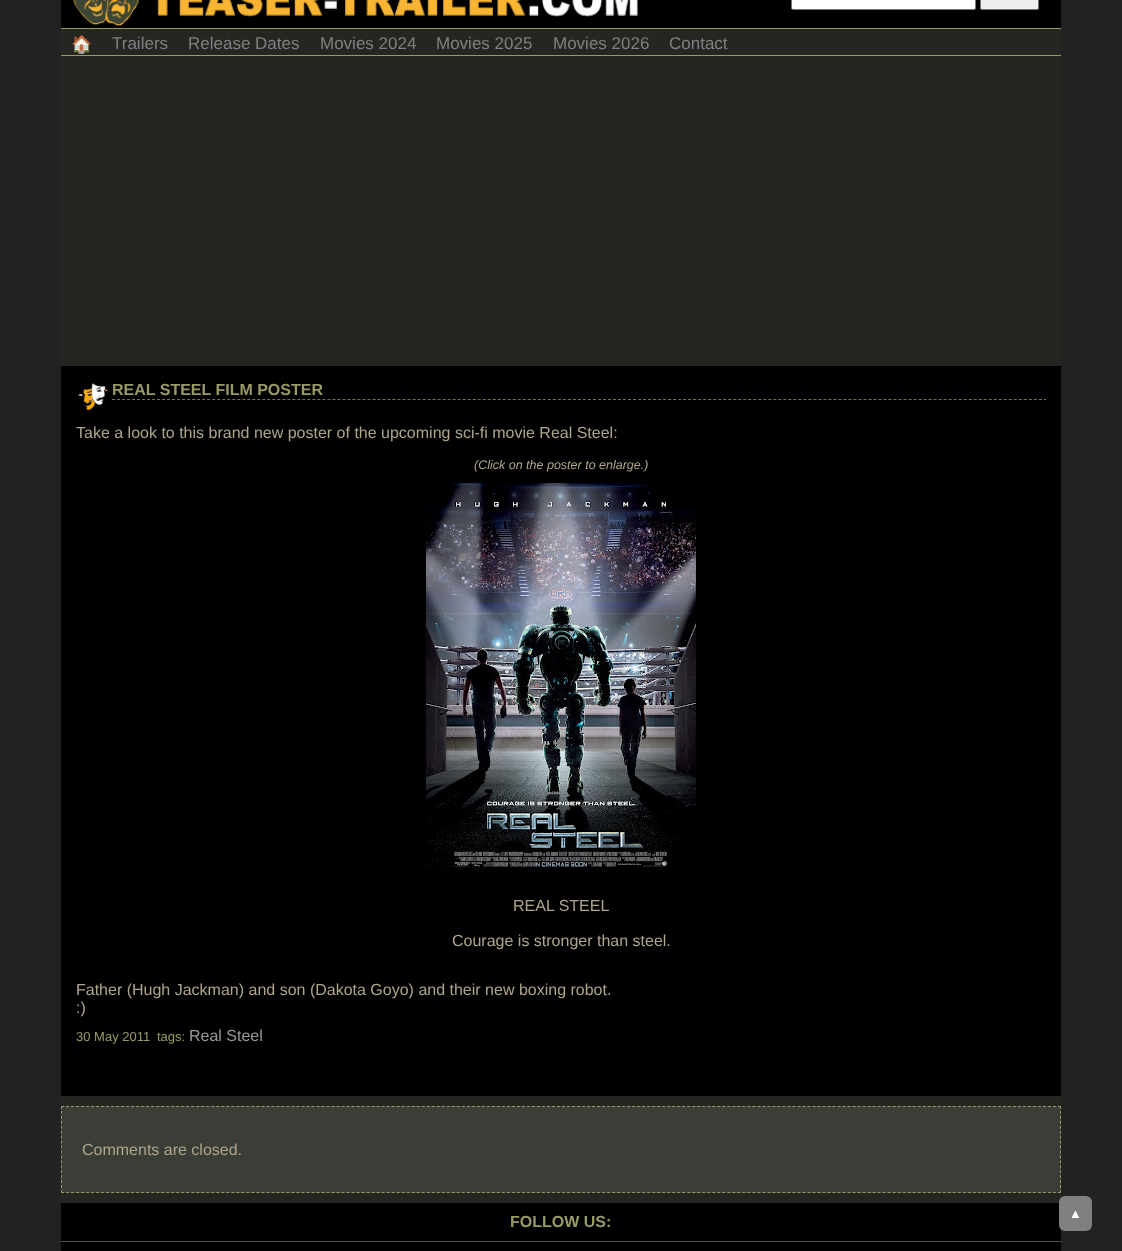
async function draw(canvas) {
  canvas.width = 1122
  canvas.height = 1251
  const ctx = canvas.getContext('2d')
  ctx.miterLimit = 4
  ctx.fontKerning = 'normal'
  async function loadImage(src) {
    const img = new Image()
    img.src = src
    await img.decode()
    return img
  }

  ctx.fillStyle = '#222'
  ctx.fillRect(0, 0, 1122, 1251)
  ctx.fillStyle = '#252622'
  ctx.fillRect(61, 29, 1000, 1174)
  ctx.fillStyle = '#000'
  ctx.fillRect(61, 0, 1000, 28)
  ctx.drawImage(await loadImage('image0.png'), 73, 0, 565, 26)
  ctx.fillStyle = '#fff'
  ctx.beginPath()
  ctx.roundRect(791.5, -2.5, 184, 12, 1.5)
  ctx.fill()
  ctx.strokeStyle = '#767676'
  ctx.stroke()
  ctx.fillStyle = '#efefef'
  ctx.beginPath()
  ctx.roundRect(980.5, -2.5, 58, 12, 1.5)
  ctx.fill()
  ctx.stroke()
  ctx.fillStyle = '#996'
  ctx.fillRect(61, 28, 1000, 1)
  ctx.fillRect(61, 55, 1000, 1)
  ctx.font = '17px Noto Color Emoji'
  ctx.fillStyle = '#808080'
  ctx.fillText('🏠', 71, 50)
  ctx.font = '17px Liberation Sans'
  ctx.fillText('Trailers', 112, 49)
  ctx.fillText('Release Dates', 188, 49)
  ctx.fillText('Movies 2024', 320, 49)
  ctx.fillText('Movies 2025', 436, 49)
  ctx.fillText('Movies 2026', 553, 49)
  ctx.fillText('Contact', 669, 49)
  ctx.fillStyle = '#000'
  ctx.fillRect(61, 366, 1000, 730)
  ctx.drawImage(await loadImage('image1.png'), 78, 383, 30, 27)
  ctx.beginPath()
  ctx.moveTo(112, 399.5)
  ctx.lineTo(1046, 399.5)
  ctx.strokeStyle = '#767154'
  ctx.setLineDash([3, 2.01])
  ctx.stroke()
  ctx.font = 'bold 16px Liberation Sans'
  ctx.fillStyle = '#996'
  ctx.fillText('REAL STEEL FILM POSTER', 112, 395)
  ctx.font = '16px Liberation Sans'
  ctx.fillStyle = '#aea58c'
  ctx.fillText('Take a look to this brand new poster of the upcoming sci-fi movie Real Steel:', 76, 438)
  ctx.font = 'italic 12.5px Liberation Sans'
  ctx.fillText('(Click on the poster to enlarge.)', 474, 469)
  ctx.drawImage(await loadImage('image2.png'), 426, 483, 270, 392)
  ctx.font = '16px Liberation Sans'
  ctx.fillText('REAL STEEL', 513, 911)
  ctx.fillText('Courage is stronger than steel.', 452, 946)
  ctx.fillText('Father (Hugh Jackman) and son (Dakota Goyo) and their new boxing robot.', 76, 995)
  ctx.fillText(':)', 76, 1013)
  ctx.font = '13px Liberation Sans'
  ctx.fillStyle = '#996'
  ctx.fillText('30 May 2011', 76, 1041)
  ctx.fillText('tags:', 157, 1041)
  ctx.font = '16px Liberation Sans'
  ctx.fillStyle = '#999'
  ctx.fillText('Real Steel', 189, 1041)
  ctx.fillStyle = '#3b3d37'
  ctx.fillRect(61, 1106, 1000, 87)
  ctx.beginPath()
  ctx.moveTo(61, 1106.5)
  ctx.lineTo(1061, 1106.5)
  ctx.strokeStyle = '#996'
  ctx.stroke()
  ctx.beginPath()
  ctx.moveTo(1060.5, 1106)
  ctx.lineTo(1060.5, 1193)
  ctx.setLineDash([3, 1.94])
  ctx.stroke()
  ctx.beginPath()
  ctx.moveTo(61, 1192.5)
  ctx.lineTo(1061, 1192.5)
  ctx.setLineDash([3, 2.01])
  ctx.stroke()
  ctx.beginPath()
  ctx.moveTo(61.5, 1106)
  ctx.lineTo(61.5, 1193)
  ctx.setLineDash([3, 1.94])
  ctx.stroke()
  ctx.fillStyle = '#aea58c'
  ctx.fillText('Comments are closed.', 82, 1155)
  ctx.fillStyle = '#000'
  ctx.fillRect(61, 1203, 1000, 48)
  ctx.fillStyle = '#515144'
  ctx.fillRect(61, 1241, 1000, 1)
  ctx.font = 'bold 16px Liberation Sans'
  ctx.fillStyle = '#996'
  ctx.fillText('FOLLOW US:', 510, 1227)
  ctx.fillStyle = '#808080'
  ctx.beginPath()
  ctx.roundRect(1059, 1196, 33, 35, 6)
  ctx.fill()
  ctx.font = '13px Liberation Sans'
  ctx.fillStyle = '#fff'
  ctx.fillText('▲', 1069, 1218)
}

draw(document.querySelector('canvas'))
